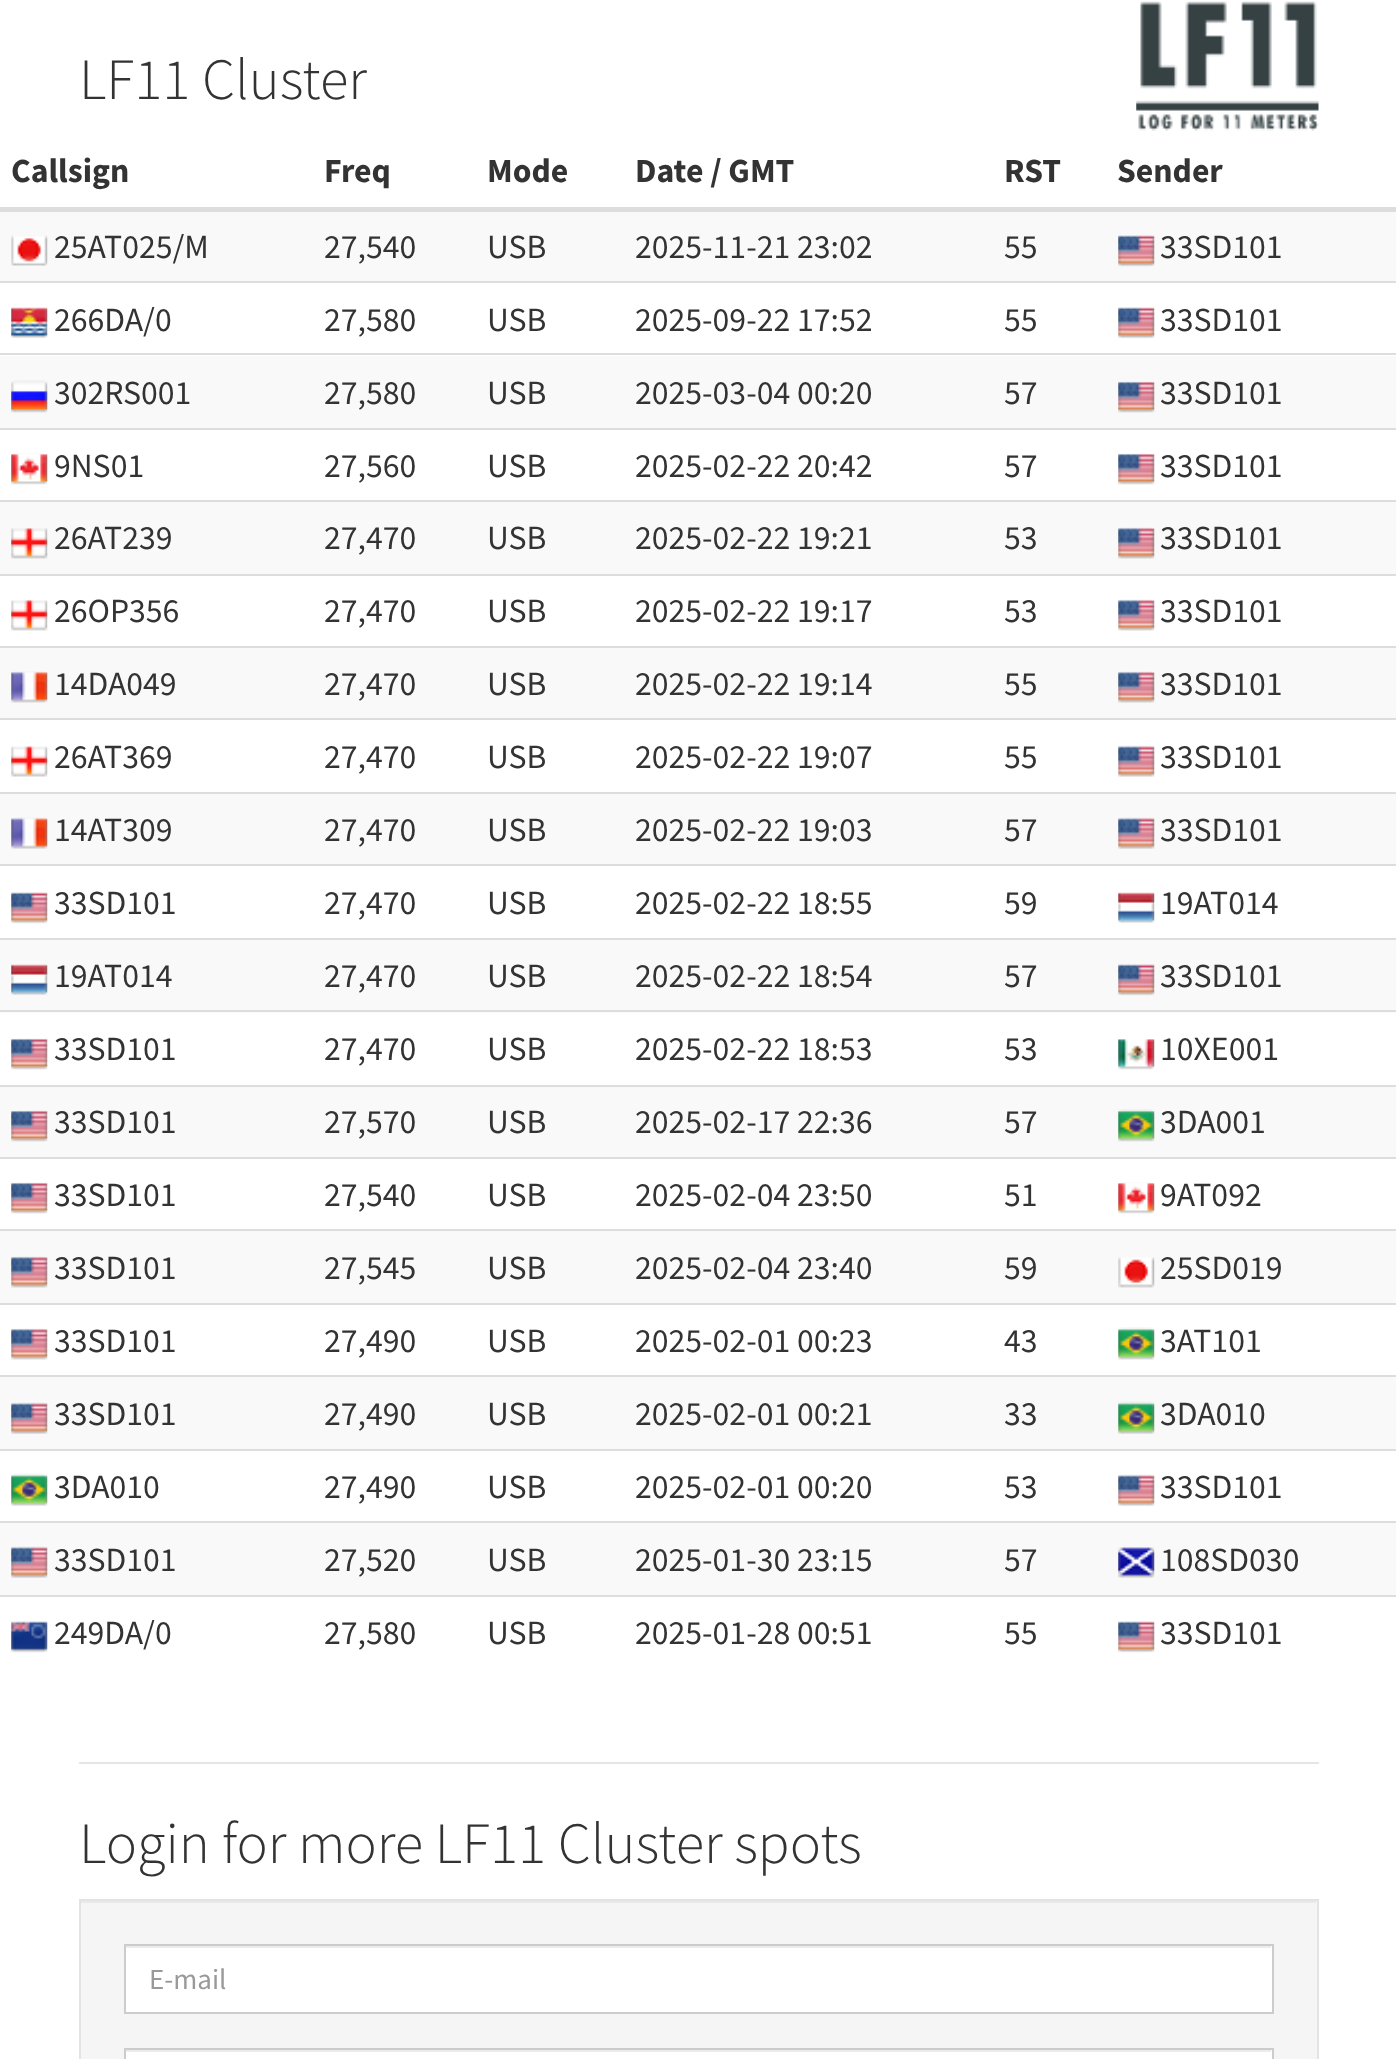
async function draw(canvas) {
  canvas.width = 1396
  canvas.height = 2059
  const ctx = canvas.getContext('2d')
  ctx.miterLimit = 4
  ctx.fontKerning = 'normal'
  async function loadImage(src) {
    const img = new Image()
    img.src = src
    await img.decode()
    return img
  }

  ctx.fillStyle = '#fff'
  ctx.fillRect(0, 0, 1396, 2059)
  ctx.font = '300 58.5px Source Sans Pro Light'
  ctx.fillStyle = '#333'
  ctx.fillText('LF11 Cluster', 79, 99)
  ctx.drawImage(await loadImage('image0.png'), 1136, 1, 183, 130)
  ctx.font = 'bold 33.75px Source Sans Pro'
  ctx.fillText('Callsign', 11, 182)
  ctx.fillText('Freq', 324, 182)
  ctx.fillText('Mode', 487, 182)
  ctx.fillText('Date / GMT', 635, 182)
  ctx.fillText('RST', 1004, 182)
  ctx.fillStyle = '#ddd'
  ctx.fillRect(0, 207, 1396, 5)
  ctx.fillStyle = '#333'
  ctx.fillText('Sender', 1117, 182)
  ctx.fillStyle = '#f9f9f9'
  ctx.fillRect(0, 212, 1396, 69)
  ctx.drawImage(await loadImage('image1.png'), 11, 235, 37, 31)
  ctx.font = '33.75px Source Sans Pro'
  ctx.fillStyle = '#333'
  ctx.fillText('25AT025/M', 54, 258)
  ctx.fillText('27,540', 324, 258)
  ctx.fillText('USB', 487, 258)
  ctx.fillText('2025-11-21 23:02', 635, 258)
  ctx.fillText('55', 1004, 258)
  ctx.drawImage(await loadImage('image2.png'), 1118, 235, 37, 32)
  ctx.fillText('33SD101', 1160, 258)
  ctx.drawImage(await loadImage('image3.png'), 11, 307, 37, 31)
  ctx.fillText('266DA/0', 54, 331)
  ctx.fillText('27,580', 324, 331)
  ctx.fillText('USB', 487, 331)
  ctx.fillText('2025-09-22 17:52', 635, 331)
  ctx.fillText('55', 1004, 331)
  ctx.fillStyle = '#ddd'
  ctx.fillRect(0, 281, 1396, 2)
  ctx.drawImage(await loadImage('image4.png'), 1118, 307, 37, 32)
  ctx.fillStyle = '#333'
  ctx.fillText('33SD101', 1160, 331)
  ctx.fillStyle = '#f9f9f9'
  ctx.fillRect(0, 356, 1396, 72)
  ctx.drawImage(await loadImage('image5.png'), 11, 380, 37, 33)
  ctx.fillStyle = '#333'
  ctx.fillText('302RS001', 54, 404)
  ctx.fillText('27,580', 324, 404)
  ctx.fillText('USB', 487, 404)
  ctx.fillText('2025-03-04 00:20', 635, 404)
  ctx.fillText('57', 1004, 404)
  ctx.fillStyle = '#ddd'
  ctx.fillRect(0, 353, 1396, 2)
  ctx.drawImage(await loadImage('image6.png'), 1118, 381, 37, 32)
  ctx.fillStyle = '#333'
  ctx.fillText('33SD101', 1160, 404)
  ctx.drawImage(await loadImage('image7.png'), 11, 453, 37, 32)
  ctx.fillText('9NS01', 54, 477)
  ctx.fillText('27,560', 324, 477)
  ctx.fillText('USB', 487, 477)
  ctx.fillText('2025-02-22 20:42', 635, 477)
  ctx.fillText('57', 1004, 477)
  ctx.fillStyle = '#ddd'
  ctx.fillRect(0, 428, 1396, 2)
  ctx.drawImage(await loadImage('image8.png'), 1118, 453, 37, 32)
  ctx.fillStyle = '#333'
  ctx.fillText('33SD101', 1160, 477)
  ctx.fillStyle = '#f9f9f9'
  ctx.fillRect(0, 502, 1396, 72)
  ctx.drawImage(await loadImage('image9.png'), 11, 528, 37, 31)
  ctx.fillStyle = '#333'
  ctx.fillText('26AT239', 54, 549)
  ctx.fillText('27,470', 324, 549)
  ctx.fillText('USB', 487, 549)
  ctx.fillText('2025-02-22 19:21', 635, 549)
  ctx.fillText('53', 1004, 549)
  ctx.fillStyle = '#ddd'
  ctx.fillRect(0, 500, 1396, 2)
  ctx.drawImage(await loadImage('image10.png'), 1118, 527, 37, 32)
  ctx.fillStyle = '#333'
  ctx.fillText('33SD101', 1160, 549)
  ctx.drawImage(await loadImage('image11.png'), 11, 600, 37, 31)
  ctx.fillText('26OP356', 54, 622)
  ctx.fillText('27,470', 324, 622)
  ctx.fillText('USB', 487, 622)
  ctx.fillText('2025-02-22 19:17', 635, 622)
  ctx.fillText('53', 1004, 622)
  ctx.fillStyle = '#ddd'
  ctx.fillRect(0, 574, 1396, 2)
  ctx.drawImage(await loadImage('image12.png'), 1118, 599, 37, 32)
  ctx.fillStyle = '#333'
  ctx.fillText('33SD101', 1160, 622)
  ctx.fillStyle = '#f9f9f9'
  ctx.fillRect(0, 648, 1396, 70)
  ctx.drawImage(await loadImage('image13.png'), 11, 671, 37, 32)
  ctx.fillStyle = '#333'
  ctx.fillText('14DA049', 54, 695)
  ctx.fillText('27,470', 324, 695)
  ctx.fillText('USB', 487, 695)
  ctx.fillText('2025-02-22 19:14', 635, 695)
  ctx.fillText('55', 1004, 695)
  ctx.fillStyle = '#ddd'
  ctx.fillRect(0, 646, 1396, 2)
  ctx.drawImage(await loadImage('image10.png'), 1118, 671, 37, 32)
  ctx.fillStyle = '#333'
  ctx.fillText('33SD101', 1160, 695)
  ctx.drawImage(await loadImage('image14.png'), 11, 746, 37, 31)
  ctx.fillText('26AT369', 54, 768)
  ctx.fillText('27,470', 324, 768)
  ctx.fillText('USB', 487, 768)
  ctx.fillText('2025-02-22 19:07', 635, 768)
  ctx.fillText('55', 1004, 768)
  ctx.fillStyle = '#ddd'
  ctx.fillRect(0, 718, 1396, 2)
  ctx.drawImage(await loadImage('image15.png'), 1118, 745, 37, 32)
  ctx.fillStyle = '#333'
  ctx.fillText('33SD101', 1160, 768)
  ctx.fillStyle = '#f9f9f9'
  ctx.fillRect(0, 794, 1396, 70)
  ctx.drawImage(await loadImage('image16.png'), 11, 817, 37, 32)
  ctx.fillStyle = '#333'
  ctx.fillText('14AT309', 54, 841)
  ctx.fillText('27,470', 324, 841)
  ctx.fillText('USB', 487, 841)
  ctx.fillText('2025-02-22 19:03', 635, 841)
  ctx.fillText('57', 1004, 841)
  ctx.fillStyle = '#ddd'
  ctx.fillRect(0, 792, 1396, 2)
  ctx.drawImage(await loadImage('image17.png'), 1118, 817, 37, 32)
  ctx.fillStyle = '#333'
  ctx.fillText('33SD101', 1160, 841)
  ctx.drawImage(await loadImage('image18.png'), 11, 892, 37, 32)
  ctx.fillText('33SD101', 54, 914)
  ctx.fillText('27,470', 324, 914)
  ctx.fillText('USB', 487, 914)
  ctx.fillText('2025-02-22 18:55', 635, 914)
  ctx.fillText('59', 1004, 914)
  ctx.fillStyle = '#ddd'
  ctx.fillRect(0, 864, 1396, 2)
  ctx.drawImage(await loadImage('image19.png'), 1118, 892, 37, 31)
  ctx.fillStyle = '#333'
  ctx.fillText('19AT014', 1160, 914)
  ctx.fillStyle = '#f9f9f9'
  ctx.fillRect(0, 940, 1396, 73)
  ctx.drawImage(await loadImage('image20.png'), 11, 964, 37, 31)
  ctx.fillStyle = '#333'
  ctx.fillText('19AT014', 54, 987)
  ctx.fillText('27,470', 324, 987)
  ctx.fillText('USB', 487, 987)
  ctx.fillText('2025-02-22 18:54', 635, 987)
  ctx.fillText('57', 1004, 987)
  ctx.fillStyle = '#ddd'
  ctx.fillRect(0, 938, 1396, 2)
  ctx.drawImage(await loadImage('image2.png'), 1118, 964, 37, 32)
  ctx.fillStyle = '#333'
  ctx.fillText('33SD101', 1160, 987)
  ctx.drawImage(await loadImage('image21.png'), 11, 1038, 37, 32)
  ctx.fillText('33SD101', 54, 1060)
  ctx.fillText('27,470', 324, 1060)
  ctx.fillText('USB', 487, 1060)
  ctx.fillText('2025-02-22 18:53', 635, 1060)
  ctx.fillText('53', 1004, 1060)
  ctx.fillStyle = '#ddd'
  ctx.fillRect(0, 1010, 1396, 2)
  ctx.drawImage(await loadImage('image22.png'), 1118, 1039, 37, 31)
  ctx.fillStyle = '#333'
  ctx.fillText('10XE001', 1160, 1060)
  ctx.fillStyle = '#f9f9f9'
  ctx.fillRect(0, 1087, 1396, 70)
  ctx.drawImage(await loadImage('image23.png'), 11, 1110, 37, 32)
  ctx.fillStyle = '#333'
  ctx.fillText('33SD101', 54, 1133)
  ctx.fillText('27,570', 324, 1133)
  ctx.fillText('USB', 487, 1133)
  ctx.fillText('2025-02-17 22:36', 635, 1133)
  ctx.fillText('57', 1004, 1133)
  ctx.fillStyle = '#ddd'
  ctx.fillRect(0, 1085, 1396, 2)
  ctx.drawImage(await loadImage('image24.png'), 1118, 1109, 37, 33)
  ctx.fillStyle = '#333'
  ctx.fillText('3DA001', 1160, 1133)
  ctx.drawImage(await loadImage('image21.png'), 11, 1182, 37, 32)
  ctx.fillText('33SD101', 54, 1206)
  ctx.fillText('27,540', 324, 1206)
  ctx.fillText('USB', 487, 1206)
  ctx.fillText('2025-02-04 23:50', 635, 1206)
  ctx.fillText('51', 1004, 1206)
  ctx.fillStyle = '#ddd'
  ctx.fillRect(0, 1157, 1396, 2)
  ctx.drawImage(await loadImage('image25.png'), 1118, 1182, 37, 32)
  ctx.fillStyle = '#333'
  ctx.fillText('9AT092', 1160, 1206)
  ctx.fillStyle = '#f9f9f9'
  ctx.fillRect(0, 1231, 1396, 72)
  ctx.drawImage(await loadImage('image26.png'), 11, 1256, 37, 32)
  ctx.fillStyle = '#333'
  ctx.fillText('33SD101', 54, 1279)
  ctx.fillText('27,545', 324, 1279)
  ctx.fillText('USB', 487, 1279)
  ctx.fillText('2025-02-04 23:40', 635, 1279)
  ctx.fillText('59', 1004, 1279)
  ctx.fillStyle = '#ddd'
  ctx.fillRect(0, 1229, 1396, 2)
  ctx.drawImage(await loadImage('image27.png'), 1118, 1257, 37, 31)
  ctx.fillStyle = '#333'
  ctx.fillText('25SD019', 1160, 1279)
  ctx.drawImage(await loadImage('image28.png'), 11, 1328, 37, 32)
  ctx.fillText('33SD101', 54, 1352)
  ctx.fillText('27,490', 324, 1352)
  ctx.fillText('USB', 487, 1352)
  ctx.fillText('2025-02-01 00:23', 635, 1352)
  ctx.fillText('43', 1004, 1352)
  ctx.fillStyle = '#ddd'
  ctx.fillRect(0, 1303, 1396, 2)
  ctx.drawImage(await loadImage('image29.png'), 1118, 1327, 37, 33)
  ctx.fillStyle = '#333'
  ctx.fillText('3AT101', 1160, 1352)
  ctx.fillStyle = '#f9f9f9'
  ctx.fillRect(0, 1377, 1396, 72)
  ctx.drawImage(await loadImage('image30.png'), 11, 1402, 37, 32)
  ctx.fillStyle = '#333'
  ctx.fillText('33SD101', 54, 1425)
  ctx.fillText('27,490', 324, 1425)
  ctx.fillText('USB', 487, 1425)
  ctx.fillText('2025-02-01 00:21', 635, 1425)
  ctx.fillText('33', 1004, 1425)
  ctx.fillStyle = '#ddd'
  ctx.fillRect(0, 1375, 1396, 2)
  ctx.drawImage(await loadImage('image31.png'), 1118, 1401, 37, 33)
  ctx.fillStyle = '#333'
  ctx.fillText('3DA010', 1160, 1425)
  ctx.drawImage(await loadImage('image32.png'), 11, 1473, 37, 33)
  ctx.fillText('3DA010', 54, 1498)
  ctx.fillText('27,490', 324, 1498)
  ctx.fillText('USB', 487, 1498)
  ctx.fillText('2025-02-01 00:20', 635, 1498)
  ctx.fillText('53', 1004, 1498)
  ctx.fillStyle = '#ddd'
  ctx.fillRect(0, 1449, 1396, 2)
  ctx.drawImage(await loadImage('image15.png'), 1118, 1474, 37, 32)
  ctx.fillStyle = '#333'
  ctx.fillText('33SD101', 1160, 1498)
  ctx.fillStyle = '#f9f9f9'
  ctx.fillRect(0, 1523, 1396, 72)
  ctx.drawImage(await loadImage('image33.png'), 11, 1546, 37, 32)
  ctx.fillStyle = '#333'
  ctx.fillText('33SD101', 54, 1571)
  ctx.fillText('27,520', 324, 1571)
  ctx.fillText('USB', 487, 1571)
  ctx.fillText('2025-01-30 23:15', 635, 1571)
  ctx.fillText('57', 1004, 1571)
  ctx.fillStyle = '#ddd'
  ctx.fillRect(0, 1521, 1396, 2)
  ctx.drawImage(await loadImage('image34.png'), 1118, 1547, 37, 31)
  ctx.fillStyle = '#333'
  ctx.fillText('108SD030', 1160, 1571)
  ctx.drawImage(await loadImage('image35.png'), 11, 1621, 37, 32)
  ctx.fillText('249DA/0', 54, 1644)
  ctx.fillText('27,580', 324, 1644)
  ctx.fillText('USB', 487, 1644)
  ctx.fillText('2025-01-28 00:51', 635, 1644)
  ctx.fillText('55', 1004, 1644)
  ctx.fillStyle = '#ddd'
  ctx.fillRect(0, 1595, 1396, 2)
  ctx.drawImage(await loadImage('image4.png'), 1118, 1621, 37, 32)
  ctx.fillStyle = '#333'
  ctx.fillText('33SD101', 1160, 1644)
  ctx.fillStyle = '#e6e6e6'
  ctx.fillRect(79, 1762, 1240, 2)
  ctx.font = '300 58.5px Source Sans Pro Light'
  ctx.fillStyle = '#333'
  ctx.fillText('Login for more LF11 Cluster spots', 79, 1863)
  ctx.fillStyle = '#f5f5f5'
  ctx.fillRect(81, 1901, 1236, 158)
  ctx.fillStyle = '#e9e9e9'
  ctx.fillRect(81, 1901, 1235, 2)
  ctx.strokeStyle = '#e3e3e3'
  ctx.lineWidth = 2
  ctx.strokeRect(80, 1900, 1238, 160)
  ctx.fillStyle = '#fff'
  ctx.fillRect(126, 1946, 1146, 66)
  ctx.fillStyle = '#ececec'
  ctx.fillRect(126, 1946, 1145, 2)
  ctx.strokeStyle = '#ccc'
  ctx.strokeRect(125, 1945, 1148, 68)
  ctx.font = '29px Source Sans Pro'
  ctx.fillStyle = '#999'
  ctx.fillText('E-mail', 149, 1989)
  ctx.fillStyle = '#fff'
  ctx.fillRect(126, 2050, 1146, 9)
  ctx.fillStyle = '#ececec'
  ctx.fillRect(126, 2050, 1145, 2)
  ctx.strokeRect(125, 2049, 1148, 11)
}

draw(document.querySelector('canvas'))
